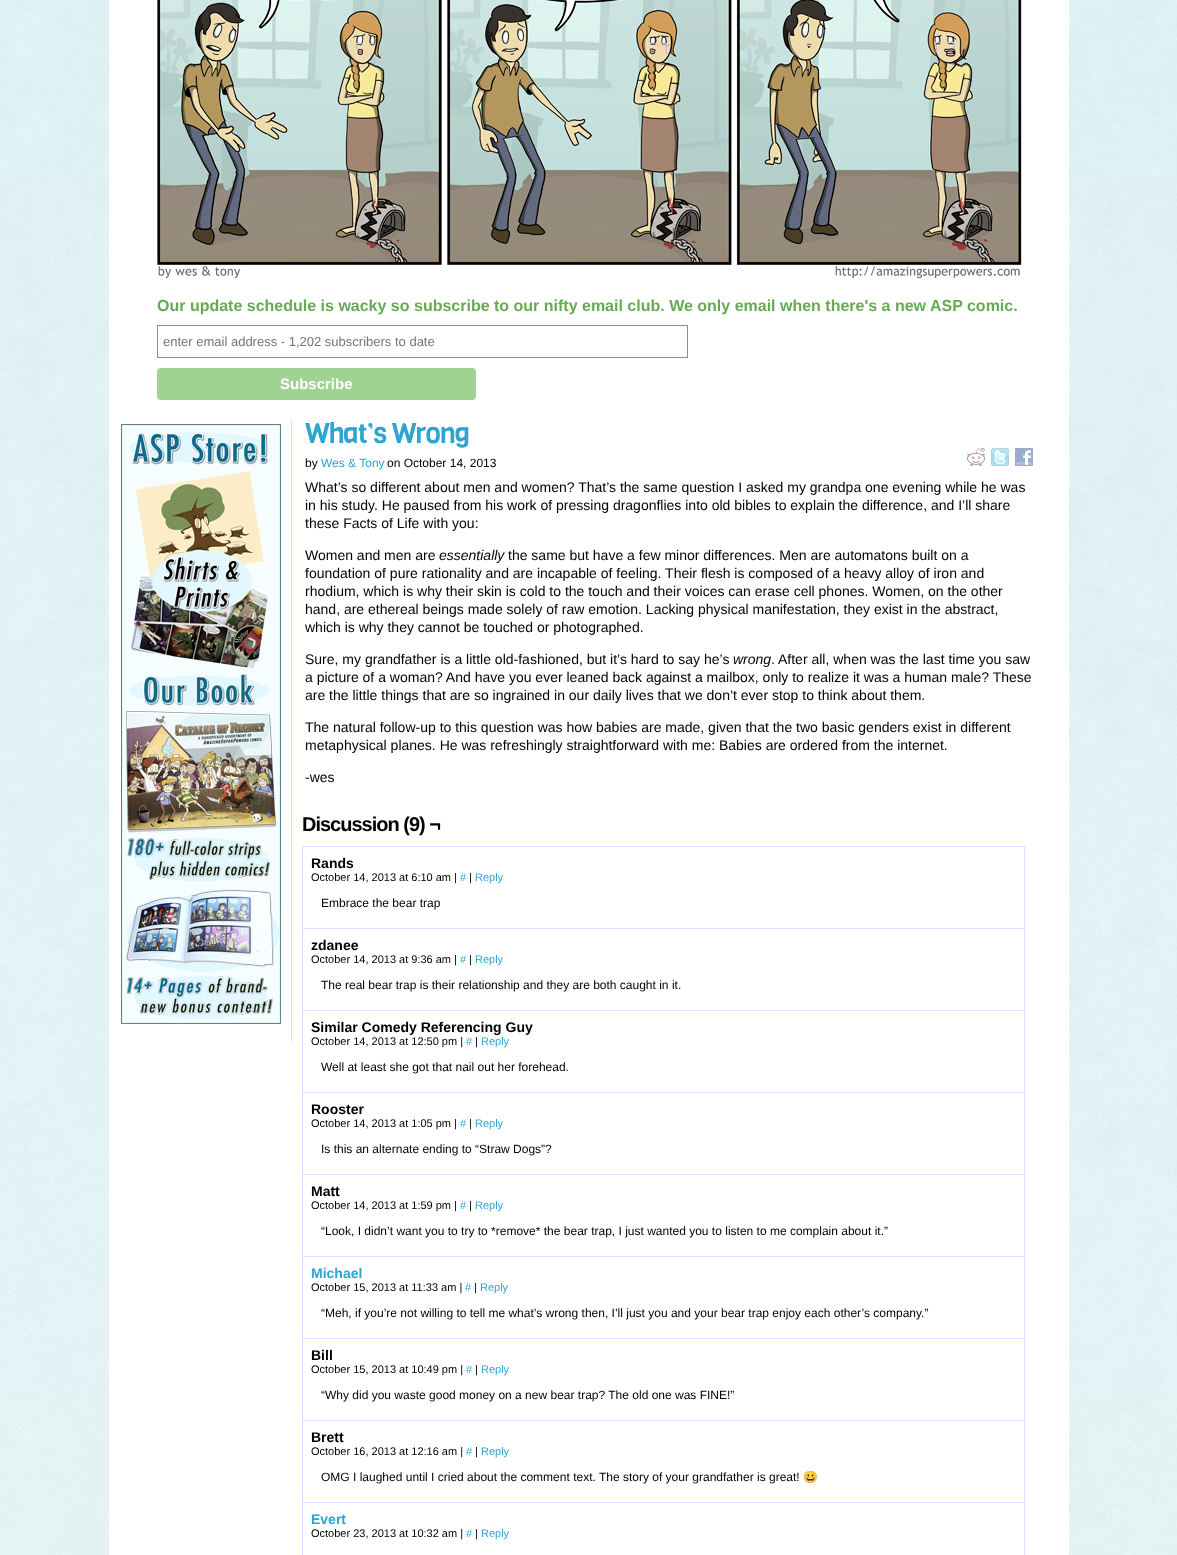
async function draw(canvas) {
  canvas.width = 1177
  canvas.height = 1555
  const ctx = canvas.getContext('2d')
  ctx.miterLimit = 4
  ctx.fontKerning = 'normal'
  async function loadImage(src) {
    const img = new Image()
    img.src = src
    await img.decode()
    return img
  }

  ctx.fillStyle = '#fff'
  ctx.fillRect(0, 0, 1177, 1555)
  ctx.drawImage(await loadImage('image0.png'), 0, 0, 1177, 1555)
  ctx.fillRect(109, 0, 960, 1555)
  ctx.drawImage(await loadImage('image1.png'), 157, 0, 865, 279)
  ctx.font = 'bold 16px Liberation Sans'
  ctx.fillStyle = '#66ab52'
  ctx.fillText('Our update schedule is wacky so subscribe to our nifty email club. We only email when there\'s a new ASP comic.', 157, 311)
  ctx.strokeStyle = '#66ab52'
  ctx.strokeRect(157.5, 325.5, 530, 32)
  ctx.font = '13px Liberation Sans'
  ctx.fillStyle = '#757575'
  ctx.fillText('enter email address - 1,202 subscribers to date', 163, 346)
  ctx.fillStyle = '#a0d292'
  ctx.beginPath()
  ctx.roundRect(157, 368, 319, 32, 4)
  ctx.fill()
  ctx.font = 'bold 15px Liberation Sans'
  ctx.fillStyle = '#fff'
  ctx.fillText('Subscribe', 280, 389)
  ctx.fillStyle = '#dae1ff'
  ctx.fillRect(291, 420, 1, 622)
  ctx.drawImage(await loadImage('image2.png'), 121, 424, 160, 600)
  ctx.letterSpacing = '-1px'
  ctx.font = '28px Viga'
  ctx.fillStyle = '#2da5ce'
  ctx.fillText('What’s Wrong', 305, 443)
  ctx.letterSpacing = '0px'
  ctx.font = '12px Liberation Sans'
  ctx.fillStyle = '#000'
  ctx.fillText('by', 305, 467)
  ctx.fillStyle = '#2da5ce'
  ctx.fillText('Wes & Tony', 321, 467)
  ctx.fillStyle = '#000'
  ctx.fillText('on October 14, 2013', 387, 467)
  ctx.font = '14px Liberation Sans'
  ctx.fillText('What’s so different about men and women? That’s the same question I asked my grandpa one evening while he was', 305, 492)
  ctx.fillText('in his study. He paused from his work of pressing dragonflies into old bibles to explain the difference, and I’ll share', 305, 510)
  ctx.fillText('these Facts of Life with you:', 305, 528)
  ctx.fillText('Women and men are', 305, 560)
  ctx.font = 'italic 14px Liberation Sans'
  ctx.fillText('essentially', 439, 560)
  ctx.font = '14px Liberation Sans'
  ctx.fillText('the same but have a few minor differences. Men are automatons built on a', 508, 560)
  ctx.fillText('foundation of pure rationality and are incapable of feeling. Their flesh is composed of a heavy alloy of iron and', 305, 578)
  ctx.fillText('rhodium, which is why their skin is cold to the touch and their voices can erase cell phones. Women, on the other', 305, 596)
  ctx.fillText('hand, are ethereal beings made solely of raw emotion. Lacking physical manifestation, they exist in the abstract,', 305, 614)
  ctx.fillText('which is why they cannot be touched or photographed.', 305, 632)
  ctx.fillText('Sure, my grandfather is a little old-fashioned, but it’s hard to say he’s', 305, 664)
  ctx.font = 'italic 14px Liberation Sans'
  ctx.fillText('wrong', 733, 664)
  ctx.font = '14px Liberation Sans'
  ctx.fillText('. After all, when was the last time you saw', 771, 664)
  ctx.fillText('a picture of a woman? And have you ever leaned back against a mailbox, only to realize it was a human male? These', 305, 682)
  ctx.fillText('are the little things that are so ingrained in our daily lives that we don’t ever stop to think about them.', 305, 700)
  ctx.fillText('The natural follow-up to this question was how babies are made, given that the two basic genders exist in different', 305, 732)
  ctx.fillText('metaphysical planes. He was refreshingly straightforward with me: Babies are ordered from the internet.', 305, 750)
  ctx.fillText('-wes', 305, 782)
  ctx.drawImage(await loadImage('image3.png'), 967, 448, 18, 18)
  ctx.drawImage(await loadImage('image4.png'), 991, 448, 18, 18)
  ctx.drawImage(await loadImage('image5.png'), 1015, 448, 18, 18)
  ctx.letterSpacing = '-1px'
  ctx.font = 'bold 20px Liberation Sans'
  ctx.fillText('Discussion (9) ¬', 302, 831)
  ctx.fillStyle = '#dae1ff'
  ctx.fillRect(302, 846, 723, 1)
  ctx.fillRect(1024, 846, 1, 82)
  ctx.fillRect(302, 846, 1, 82)
  ctx.letterSpacing = '0px'
  ctx.font = 'bold 14px Liberation Sans'
  ctx.fillStyle = '#000'
  ctx.fillText('Rands', 311, 868)
  ctx.font = '11px Liberation Sans'
  ctx.fillText('October 14, 2013 at 6:10 am |', 311, 881)
  ctx.fillStyle = '#2da5ce'
  ctx.fillText('#', 460, 881)
  ctx.fillStyle = '#000'
  ctx.fillText('|', 469, 881)
  ctx.fillStyle = '#2da5ce'
  ctx.fillText('Reply', 475, 881)
  ctx.font = '12px Liberation Sans'
  ctx.fillStyle = '#000'
  ctx.fillText('Embrace the bear trap', 321, 907)
  ctx.fillStyle = '#dae1ff'
  ctx.fillRect(302, 928, 723, 1)
  ctx.fillRect(1024, 928, 1, 82)
  ctx.fillRect(302, 928, 1, 82)
  ctx.font = 'bold 14px Liberation Sans'
  ctx.fillStyle = '#000'
  ctx.fillText('zdanee', 311, 950)
  ctx.font = '11px Liberation Sans'
  ctx.fillText('October 14, 2013 at 9:36 am |', 311, 963)
  ctx.fillStyle = '#2da5ce'
  ctx.fillText('#', 460, 963)
  ctx.fillStyle = '#000'
  ctx.fillText('|', 469, 963)
  ctx.fillStyle = '#2da5ce'
  ctx.fillText('Reply', 475, 963)
  ctx.font = '12px Liberation Sans'
  ctx.fillStyle = '#000'
  ctx.fillText('The real bear trap is their relationship and they are both caught in it.', 321, 989)
  ctx.fillStyle = '#dae1ff'
  ctx.fillRect(302, 1010, 723, 1)
  ctx.fillRect(1024, 1010, 1, 82)
  ctx.fillRect(302, 1010, 1, 82)
  ctx.font = 'bold 14px Liberation Sans'
  ctx.fillStyle = '#000'
  ctx.fillText('Similar Comedy Referencing Guy', 311, 1032)
  ctx.font = '11px Liberation Sans'
  ctx.fillText('October 14, 2013 at 12:50 pm |', 311, 1045)
  ctx.fillStyle = '#2da5ce'
  ctx.fillText('#', 466, 1045)
  ctx.fillStyle = '#000'
  ctx.fillText('|', 475, 1045)
  ctx.fillStyle = '#2da5ce'
  ctx.fillText('Reply', 481, 1045)
  ctx.font = '12px Liberation Sans'
  ctx.fillStyle = '#000'
  ctx.fillText('Well at least she got that nail out her forehead.', 321, 1071)
  ctx.fillStyle = '#dae1ff'
  ctx.fillRect(302, 1092, 723, 1)
  ctx.fillRect(1024, 1092, 1, 82)
  ctx.fillRect(302, 1092, 1, 82)
  ctx.font = 'bold 14px Liberation Sans'
  ctx.fillStyle = '#000'
  ctx.fillText('Rooster', 311, 1114)
  ctx.font = '11px Liberation Sans'
  ctx.fillText('October 14, 2013 at 1:05 pm |', 311, 1127)
  ctx.fillStyle = '#2da5ce'
  ctx.fillText('#', 460, 1127)
  ctx.fillStyle = '#000'
  ctx.fillText('|', 469, 1127)
  ctx.fillStyle = '#2da5ce'
  ctx.fillText('Reply', 475, 1127)
  ctx.font = '12px Liberation Sans'
  ctx.fillStyle = '#000'
  ctx.fillText('Is this an alternate ending to “Straw Dogs”?', 321, 1153)
  ctx.fillStyle = '#dae1ff'
  ctx.fillRect(302, 1174, 723, 1)
  ctx.fillRect(1024, 1174, 1, 82)
  ctx.fillRect(302, 1174, 1, 82)
  ctx.font = 'bold 14px Liberation Sans'
  ctx.fillStyle = '#000'
  ctx.fillText('Matt', 311, 1196)
  ctx.font = '11px Liberation Sans'
  ctx.fillText('October 14, 2013 at 1:59 pm |', 311, 1209)
  ctx.fillStyle = '#2da5ce'
  ctx.fillText('#', 460, 1209)
  ctx.fillStyle = '#000'
  ctx.fillText('|', 469, 1209)
  ctx.fillStyle = '#2da5ce'
  ctx.fillText('Reply', 475, 1209)
  ctx.font = '12px Liberation Sans'
  ctx.fillStyle = '#000'
  ctx.fillText('“Look, I didn’t want you to try to *remove* the bear trap, I just wanted you to listen to me complain about it.”', 321, 1235)
  ctx.fillStyle = '#dae1ff'
  ctx.fillRect(302, 1256, 723, 1)
  ctx.fillRect(1024, 1256, 1, 82)
  ctx.fillRect(302, 1256, 1, 82)
  ctx.font = 'bold 14px Liberation Sans'
  ctx.fillStyle = '#2da5ce'
  ctx.fillText('Michael', 311, 1278)
  ctx.font = '11px Liberation Sans'
  ctx.fillStyle = '#000'
  ctx.fillText('October 15, 2013 at 11:33 am |', 311, 1291)
  ctx.fillStyle = '#2da5ce'
  ctx.fillText('#', 465, 1291)
  ctx.fillStyle = '#000'
  ctx.fillText('|', 474, 1291)
  ctx.fillStyle = '#2da5ce'
  ctx.fillText('Reply', 480, 1291)
  ctx.font = '12px Liberation Sans'
  ctx.fillStyle = '#000'
  ctx.fillText('“Meh, if you’re not willing to tell me what’s wrong then, I’ll just you and your bear trap enjoy each other’s company.”', 321, 1317)
  ctx.fillStyle = '#dae1ff'
  ctx.fillRect(302, 1338, 723, 1)
  ctx.fillRect(1024, 1338, 1, 82)
  ctx.fillRect(302, 1338, 1, 82)
  ctx.font = 'bold 14px Liberation Sans'
  ctx.fillStyle = '#000'
  ctx.fillText('Bill', 311, 1360)
  ctx.font = '11px Liberation Sans'
  ctx.fillText('October 15, 2013 at 10:49 pm |', 311, 1373)
  ctx.fillStyle = '#2da5ce'
  ctx.fillText('#', 466, 1373)
  ctx.fillStyle = '#000'
  ctx.fillText('|', 475, 1373)
  ctx.fillStyle = '#2da5ce'
  ctx.fillText('Reply', 481, 1373)
  ctx.font = '12px Liberation Sans'
  ctx.fillStyle = '#000'
  ctx.fillText('“Why did you waste good money on a new bear trap? The old one was FINE!”', 321, 1399)
  ctx.fillStyle = '#dae1ff'
  ctx.fillRect(302, 1420, 723, 1)
  ctx.fillRect(1024, 1420, 1, 82)
  ctx.fillRect(302, 1420, 1, 82)
  ctx.font = 'bold 14px Liberation Sans'
  ctx.fillStyle = '#000'
  ctx.fillText('Brett', 311, 1442)
  ctx.font = '11px Liberation Sans'
  ctx.fillText('October 16, 2013 at 12:16 am |', 311, 1455)
  ctx.fillStyle = '#2da5ce'
  ctx.fillText('#', 466, 1455)
  ctx.fillStyle = '#000'
  ctx.fillText('|', 475, 1455)
  ctx.fillStyle = '#2da5ce'
  ctx.fillText('Reply', 481, 1455)
  ctx.font = '12px Liberation Sans'
  ctx.fillStyle = '#000'
  ctx.fillText('OMG I laughed until I cried about the comment text. The story of your grandfather is great!', 321, 1481)
  ctx.font = '12px Noto Color Emoji'
  ctx.fillText('😀', 803, 1481)
  ctx.fillStyle = '#dae1ff'
  ctx.fillRect(302, 1502, 723, 1)
  ctx.fillRect(1024, 1502, 1, 53)
  ctx.fillRect(302, 1502, 1, 53)
  ctx.font = 'bold 14px Liberation Sans'
  ctx.fillStyle = '#2da5ce'
  ctx.fillText('Evert', 311, 1524)
  ctx.font = '11px Liberation Sans'
  ctx.fillStyle = '#000'
  ctx.fillText('October 23, 2013 at 10:32 am |', 311, 1537)
  ctx.fillStyle = '#2da5ce'
  ctx.fillText('#', 466, 1537)
  ctx.fillStyle = '#000'
  ctx.fillText('|', 475, 1537)
  ctx.fillStyle = '#2da5ce'
  ctx.fillText('Reply', 481, 1537)
}

draw(document.querySelector('canvas'))
